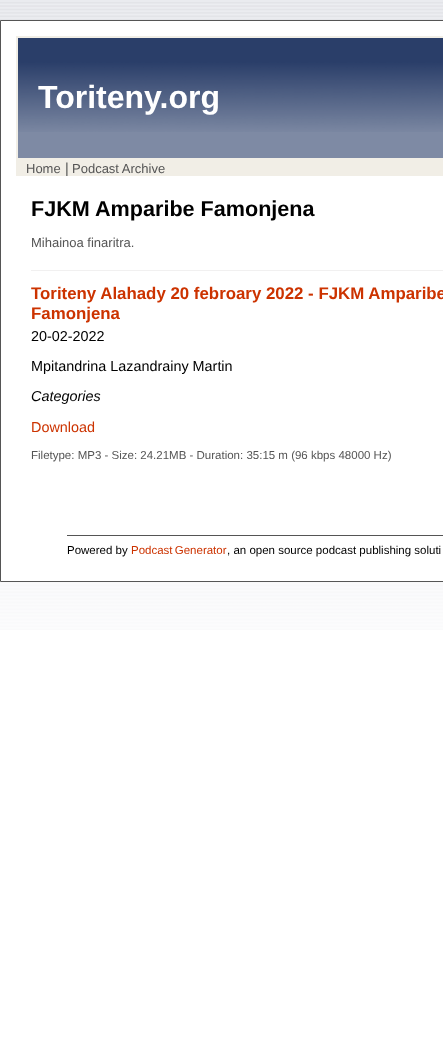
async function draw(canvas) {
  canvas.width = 443
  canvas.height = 1064
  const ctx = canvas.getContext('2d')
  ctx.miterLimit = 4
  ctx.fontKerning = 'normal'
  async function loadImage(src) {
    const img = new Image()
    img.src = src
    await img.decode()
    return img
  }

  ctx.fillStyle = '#fff'
  ctx.fillRect(0, 0, 443, 1064)
  ctx.drawImage(await loadImage('image0.png'), 0, 0, 443, 630)
  ctx.beginPath()
  ctx.rect(0.5, 20.5, 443, 561)
  ctx.fill()
  ctx.strokeStyle = '#555'
  ctx.stroke()
  ctx.fillStyle = '#7e8aa4'
  ctx.fillRect(18, 132, 425, 26)
  ctx.drawImage(await loadImage('image1.png'), 18, 38, 425, 94)
  ctx.strokeStyle = '#f1eee6'
  ctx.lineWidth = 2
  ctx.strokeRect(17, 37, 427, 122)
  ctx.font = 'bold 32px Liberation Sans'
  ctx.fillStyle = '#fff'
  ctx.fillText('Toriteny.org', 38, 108)
  ctx.fillStyle = '#f1eee6'
  ctx.fillRect(16, 160, 427, 16)
  ctx.font = '13px Liberation Sans'
  ctx.fillStyle = '#555'
  ctx.fillText('Home', 26, 173)
  ctx.font = '14.4px Liberation Sans'
  ctx.fillText('|', 65, 173)
  ctx.font = '13px Liberation Sans'
  ctx.fillText('Podcast Archive', 72, 173)
  ctx.font = 'bold 21.6px Liberation Sans'
  ctx.fillStyle = '#000'
  ctx.fillText('FJKM Amparibe Famonjena', 31, 216)
  ctx.font = '13px Liberation Sans'
  ctx.fillStyle = '#555'
  ctx.fillText('Mihainoa finaritra.', 31, 247)
  ctx.fillStyle = '#f1f0f0'
  ctx.fillRect(31, 270, 412, 1)
  ctx.font = 'bold 16.85px Liberation Sans'
  ctx.fillStyle = '#c30'
  ctx.fillText('Toriteny Alahady 20 febroary 2022 - FJKM Amparibe', 31, 299)
  ctx.fillText('Famonjena', 31, 319)
  ctx.font = '14.4px Liberation Sans'
  ctx.fillStyle = '#000'
  ctx.fillText('20-02-2022', 31, 341)
  ctx.fillText('Mpitandrina Lazandrainy Martin', 31, 371)
  ctx.font = 'italic 14.4px Liberation Sans'
  ctx.fillText('Categories', 31, 401)
  ctx.font = '14.4px Liberation Sans'
  ctx.fillStyle = '#c30'
  ctx.fillText('Download', 31, 432)
  ctx.font = '11.5px Liberation Sans'
  ctx.fillStyle = '#555'
  ctx.fillText('Filetype: MP3 - Size: 24.21MB - Duration: 35:15 m (96 kbps 48000 Hz)', 31, 459)
  ctx.fillRect(67, 535, 376, 1)
  ctx.fillStyle = '#000'
  ctx.fillText('Powered by', 67, 554)
  ctx.wordSpacing = '-1px'
  ctx.fillStyle = '#c30'
  ctx.fillText('Podcast Generator', 131, 554)
  ctx.wordSpacing = '0px'
  ctx.fillStyle = '#000'
  ctx.fillText(', an open source podcast publishing soluti', 227, 554)
}

draw(document.querySelector('canvas'))
